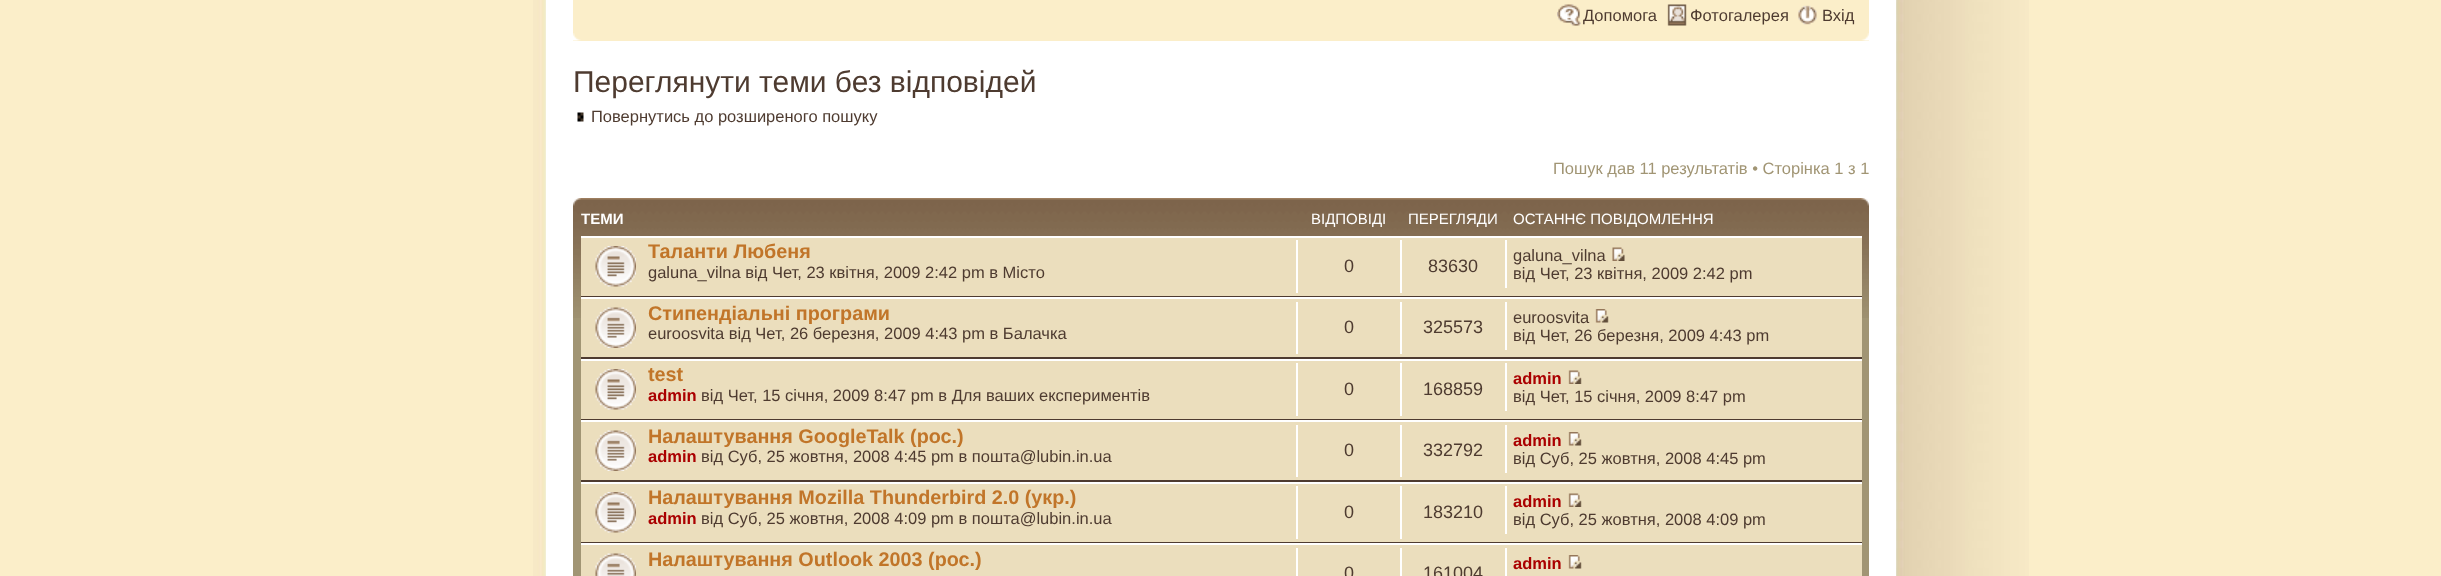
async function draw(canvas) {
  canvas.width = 2441
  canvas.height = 576
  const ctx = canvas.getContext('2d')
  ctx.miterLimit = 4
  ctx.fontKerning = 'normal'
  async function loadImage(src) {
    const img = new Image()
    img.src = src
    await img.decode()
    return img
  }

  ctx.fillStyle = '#fbeec9'
  ctx.fillRect(0, 0, 2441, 576)
  ctx.drawImage(await loadImage('image0.png'), 533, 0, 1496, 576)
  ctx.fillStyle = '#fff'
  ctx.fillRect(546, 0, 1350, 576)
  ctx.fillStyle = '#fbeec9'
  ctx.fillRect(573, 0, 1296, 41)
  ctx.drawImage(await loadImage('image1.png'), 1557, 4, 24, 22)
  ctx.font = '16.5px Liberation Sans'
  ctx.fillStyle = '#4e3b30'
  ctx.fillText('Допомога', 1583, 21)
  ctx.drawImage(await loadImage('image2.png'), 1667, 4, 20, 22)
  ctx.fillText('Фотогалерея', 1690, 21)
  ctx.drawImage(await loadImage('image3.png'), 1798, 5, 19, 20)
  ctx.fillText('Вхід', 1822, 21)
  ctx.drawImage(await loadImage('image4.png'), 573, 33, 8, 8)
  ctx.drawImage(await loadImage('image5.png'), 1861, 33, 8, 8)
  ctx.font = '30px Liberation Sans'
  ctx.fillText('Переглянути теми без відповідей', 573, 92)
  ctx.drawImage(await loadImage('image6.png'), 577, 112, 7, 10)
  ctx.font = '16.5px Liberation Sans'
  ctx.fillText('Повернутись до розширеного пошуку', 591, 122)
  ctx.fillStyle = '#a19574'
  ctx.fillText('Пошук дав 11 результатів • Сторінка 1 з 1', 1553, 174)
  ctx.fillRect(573, 318, 1296, 258)
  ctx.drawImage(await loadImage('image7.png'), 573, 198, 1296, 120)
  ctx.drawImage(await loadImage('image8.png'), 573, 198, 8, 8)
  ctx.drawImage(await loadImage('image9.png'), 1861, 198, 8, 8)
  ctx.save()
  ctx.beginPath()
  ctx.rect(581, 206, 1281, 30)
  ctx.clip()
  ctx.font = 'bold 15px Liberation Sans'
  ctx.fillStyle = '#fff'
  ctx.fillText('ТЕМИ', 581, 224)
  ctx.restore()
  ctx.font = '15px Liberation Sans'
  ctx.fillStyle = '#fff'
  ctx.fillText('ВІДПОВІДІ', 1311, 224)
  ctx.fillText('ПЕРЕГЛЯДИ', 1408, 224)
  ctx.fillText('ОСТАННЄ ПОВІДОМЛЕННЯ', 1513, 224)
  ctx.fillStyle = '#ebdebd'
  ctx.fillRect(581, 238, 1281, 58)
  ctx.fillStyle = '#fff'
  ctx.fillRect(581, 236, 1281, 2)
  ctx.fillStyle = '#4e3b30'
  ctx.fillRect(581, 296, 1281, 1)
  ctx.drawImage(await loadImage('image10.png'), 595, 246, 41, 41)
  ctx.font = 'bold 19.8px Liberation Sans'
  ctx.fillStyle = '#c17529'
  ctx.fillText('Таланти Любеня', 648, 258)
  ctx.font = '16.5px Liberation Sans'
  ctx.fillStyle = '#4e3b30'
  ctx.fillText('galuna_vilna від Чет, 23 квітня, 2009 2:42 pm в Місто', 648, 278)
  ctx.fillStyle = '#fff'
  ctx.fillRect(1296, 240, 2, 53)
  ctx.font = '18px Liberation Sans'
  ctx.fillStyle = '#4e3b30'
  ctx.fillText('0', 1344, 272)
  ctx.fillStyle = '#fff'
  ctx.fillRect(1400, 240, 2, 53)
  ctx.fillStyle = '#4e3b30'
  ctx.fillText('83630', 1428, 272)
  ctx.fillStyle = '#fff'
  ctx.fillRect(1505, 240, 2, 48)
  ctx.font = '16.5px Liberation Sans'
  ctx.fillStyle = '#4e3b30'
  ctx.fillText('galuna_vilna', 1513, 261)
  ctx.drawImage(await loadImage('image11.png'), 1612, 247, 13, 14)
  ctx.fillText('від Чет, 23 квітня, 2009 2:42 pm', 1513, 279)
  ctx.fillStyle = '#ebdebd'
  ctx.fillRect(581, 299, 1281, 58)
  ctx.fillStyle = '#fff'
  ctx.fillRect(581, 297, 1281, 2)
  ctx.fillStyle = '#4e3b30'
  ctx.fillRect(581, 357, 1281, 2)
  ctx.drawImage(await loadImage('image12.png'), 595, 307, 41, 41)
  ctx.font = 'bold 19.8px Liberation Sans'
  ctx.fillStyle = '#c17529'
  ctx.fillText('Стипендіальні програми', 648, 320)
  ctx.font = '16.5px Liberation Sans'
  ctx.fillStyle = '#4e3b30'
  ctx.fillText('euroosvita від Чет, 26 березня, 2009 4:43 pm в Балачка', 648, 339)
  ctx.fillStyle = '#fff'
  ctx.fillRect(1296, 302, 2, 52)
  ctx.font = '18px Liberation Sans'
  ctx.fillStyle = '#4e3b30'
  ctx.fillText('0', 1344, 333)
  ctx.fillStyle = '#fff'
  ctx.fillRect(1400, 302, 2, 52)
  ctx.fillStyle = '#4e3b30'
  ctx.fillText('325573', 1423, 333)
  ctx.fillStyle = '#fff'
  ctx.fillRect(1505, 302, 2, 48)
  ctx.font = '16.5px Liberation Sans'
  ctx.fillStyle = '#4e3b30'
  ctx.fillText('euroosvita', 1513, 323)
  ctx.drawImage(await loadImage('image13.png'), 1595, 309, 14, 14)
  ctx.fillText('від Чет, 26 березня, 2009 4:43 pm', 1513, 341)
  ctx.fillStyle = '#ebdebd'
  ctx.fillRect(581, 361, 1281, 58)
  ctx.fillStyle = '#fff'
  ctx.fillRect(581, 359, 1281, 2)
  ctx.fillStyle = '#4e3b30'
  ctx.fillRect(581, 419, 1281, 1)
  ctx.drawImage(await loadImage('image10.png'), 595, 369, 41, 41)
  ctx.font = 'bold 19.8px Liberation Sans'
  ctx.fillStyle = '#c17529'
  ctx.fillText('test', 648, 381)
  ctx.font = 'bold 16.5px Liberation Sans'
  ctx.fillStyle = '#a00'
  ctx.fillText('admin', 648, 401)
  ctx.font = '16.5px Liberation Sans'
  ctx.fillStyle = '#4e3b30'
  ctx.fillText('від Чет, 15 січня, 2009 8:47 pm в Для ваших експериментів', 701, 401)
  ctx.fillStyle = '#fff'
  ctx.fillRect(1296, 363, 2, 53)
  ctx.font = '18px Liberation Sans'
  ctx.fillStyle = '#4e3b30'
  ctx.fillText('0', 1344, 395)
  ctx.fillStyle = '#fff'
  ctx.fillRect(1400, 363, 2, 53)
  ctx.fillStyle = '#4e3b30'
  ctx.fillText('168859', 1423, 395)
  ctx.fillStyle = '#fff'
  ctx.fillRect(1505, 363, 2, 48)
  ctx.font = 'bold 16.5px Liberation Sans'
  ctx.fillStyle = '#a00'
  ctx.fillText('admin', 1513, 384)
  ctx.drawImage(await loadImage('image14.png'), 1568, 370, 14, 14)
  ctx.font = '16.5px Liberation Sans'
  ctx.fillStyle = '#4e3b30'
  ctx.fillText('від Чет, 15 січня, 2009 8:47 pm', 1513, 402)
  ctx.fillStyle = '#ebdebd'
  ctx.fillRect(581, 422, 1281, 58)
  ctx.fillStyle = '#fff'
  ctx.fillRect(581, 420, 1281, 2)
  ctx.fillStyle = '#4e3b30'
  ctx.fillRect(581, 480, 1281, 2)
  ctx.drawImage(await loadImage('image12.png'), 595, 430, 41, 41)
  ctx.font = 'bold 19.8px Liberation Sans'
  ctx.fillStyle = '#c17529'
  ctx.fillText('Налаштування GoogleTalk (рос.)', 648, 443)
  ctx.font = 'bold 16.5px Liberation Sans'
  ctx.fillStyle = '#a00'
  ctx.fillText('admin', 648, 462)
  ctx.font = '16.5px Liberation Sans'
  ctx.fillStyle = '#4e3b30'
  ctx.fillText('від Суб, 25 жовтня, 2008 4:45 pm в пошта@lubin.in.ua', 701, 462)
  ctx.fillStyle = '#fff'
  ctx.fillRect(1296, 425, 2, 52)
  ctx.font = '18px Liberation Sans'
  ctx.fillStyle = '#4e3b30'
  ctx.fillText('0', 1344, 456)
  ctx.fillStyle = '#fff'
  ctx.fillRect(1400, 425, 2, 52)
  ctx.fillStyle = '#4e3b30'
  ctx.fillText('332792', 1423, 456)
  ctx.fillStyle = '#fff'
  ctx.fillRect(1505, 425, 2, 48)
  ctx.font = 'bold 16.5px Liberation Sans'
  ctx.fillStyle = '#a00'
  ctx.fillText('admin', 1513, 446)
  ctx.drawImage(await loadImage('image13.png'), 1568, 432, 14, 14)
  ctx.font = '16.5px Liberation Sans'
  ctx.fillStyle = '#4e3b30'
  ctx.fillText('від Суб, 25 жовтня, 2008 4:45 pm', 1513, 464)
  ctx.fillStyle = '#ebdebd'
  ctx.fillRect(581, 484, 1281, 58)
  ctx.fillStyle = '#fff'
  ctx.fillRect(581, 482, 1281, 2)
  ctx.fillStyle = '#4e3b30'
  ctx.fillRect(581, 542, 1281, 1)
  ctx.drawImage(await loadImage('image10.png'), 595, 492, 41, 41)
  ctx.font = 'bold 19.8px Liberation Sans'
  ctx.fillStyle = '#c17529'
  ctx.fillText('Налаштування Mozilla Thunderbird 2.0 (укр.)', 648, 504)
  ctx.font = 'bold 16.5px Liberation Sans'
  ctx.fillStyle = '#a00'
  ctx.fillText('admin', 648, 524)
  ctx.font = '16.5px Liberation Sans'
  ctx.fillStyle = '#4e3b30'
  ctx.fillText('від Суб, 25 жовтня, 2008 4:09 pm в пошта@lubin.in.ua', 701, 524)
  ctx.fillStyle = '#fff'
  ctx.fillRect(1296, 486, 2, 53)
  ctx.font = '18px Liberation Sans'
  ctx.fillStyle = '#4e3b30'
  ctx.fillText('0', 1344, 518)
  ctx.fillStyle = '#fff'
  ctx.fillRect(1400, 486, 2, 53)
  ctx.fillStyle = '#4e3b30'
  ctx.fillText('183210', 1423, 518)
  ctx.fillStyle = '#fff'
  ctx.fillRect(1505, 486, 2, 48)
  ctx.font = 'bold 16.5px Liberation Sans'
  ctx.fillStyle = '#a00'
  ctx.fillText('admin', 1513, 507)
  ctx.drawImage(await loadImage('image14.png'), 1568, 493, 14, 14)
  ctx.font = '16.5px Liberation Sans'
  ctx.fillStyle = '#4e3b30'
  ctx.fillText('від Суб, 25 жовтня, 2008 4:09 pm', 1513, 525)
  ctx.fillStyle = '#ebdebd'
  ctx.fillRect(581, 545, 1281, 31)
  ctx.fillStyle = '#fff'
  ctx.fillRect(581, 543, 1281, 2)
  ctx.drawImage(await loadImage('image15.png'), 595, 553, 41, 23)
  ctx.font = 'bold 19.8px Liberation Sans'
  ctx.fillStyle = '#c17529'
  ctx.fillText('Налаштування Outlook 2003 (рос.)', 648, 566)
  ctx.fillStyle = '#fff'
  ctx.fillRect(1505, 548, 2, 28)
  ctx.font = 'bold 16.5px Liberation Sans'
  ctx.fillStyle = '#a00'
  ctx.fillText('admin', 1513, 569)
  ctx.drawImage(await loadImage('image13.png'), 1568, 555, 14, 14)
  ctx.fillStyle = '#fff'
  ctx.fillRect(1296, 548, 2, 28)
  ctx.font = '18px Liberation Sans'
  ctx.fillStyle = '#4e3b30'
  ctx.fillText('0', 1344, 579)
  ctx.fillStyle = '#fff'
  ctx.fillRect(1400, 548, 2, 28)
  ctx.fillStyle = '#4e3b30'
  ctx.fillText('161004', 1423, 579)
}

draw(document.querySelector('canvas'))
